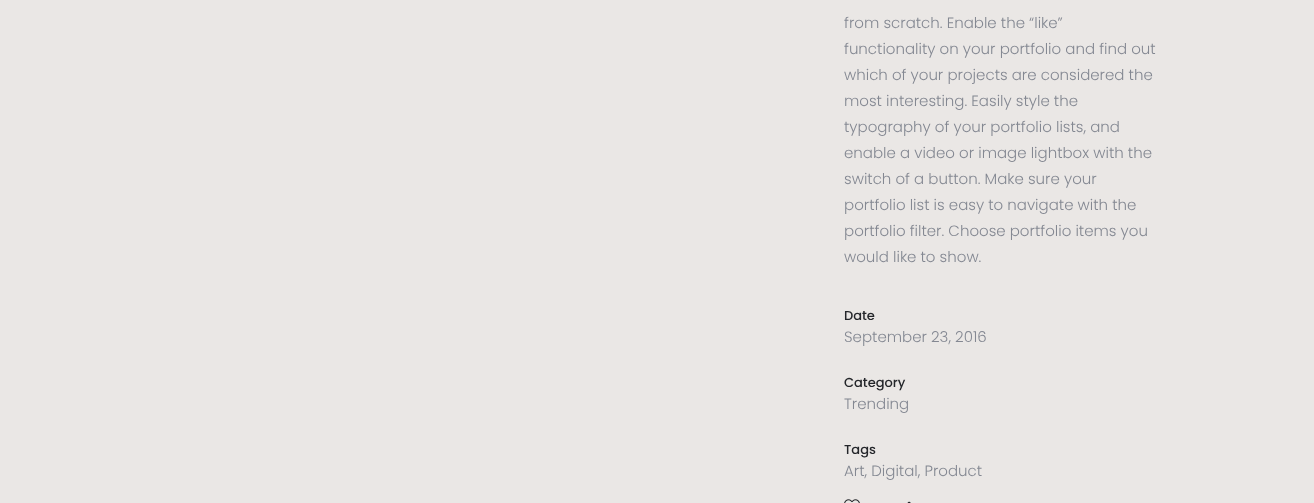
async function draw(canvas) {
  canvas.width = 1314
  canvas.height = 503
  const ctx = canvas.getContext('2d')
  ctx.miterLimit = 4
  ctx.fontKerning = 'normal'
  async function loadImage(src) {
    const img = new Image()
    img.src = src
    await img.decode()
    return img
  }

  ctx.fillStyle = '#eae7e5'
  ctx.fillRect(0, 0, 1314, 503)
  ctx.font = '300 15px Poppins'
  ctx.fillStyle = '#848892'
  ctx.fillText('from scratch. Enable the “like”', 844, 28)
  ctx.fillText('functionality on your portfolio and find out', 844, 54)
  ctx.fillText('which of your projects are considered the', 844, 80)
  ctx.fillText('most interesting. Easily style the', 844, 106)
  ctx.fillText('typography of your portfolio lists, and', 844, 132)
  ctx.fillText('enable a video or image lightbox with the', 844, 158)
  ctx.fillText('switch of a button. Make sure your', 844, 184)
  ctx.fillText('portfolio list is easy to navigate with the', 844, 210)
  ctx.fillText('portfolio filter. Choose portfolio items you', 844, 236)
  ctx.fillText('would like to show.', 844, 262)
  ctx.font = '500 13px Poppins'
  ctx.fillStyle = '#24262a'
  ctx.fillText('Date', 844, 320)
  ctx.font = '300 15px Poppins'
  ctx.fillStyle = '#848892'
  ctx.fillText('September 23, 2016', 844, 342)
  ctx.font = '500 13px Poppins'
  ctx.fillStyle = '#24262a'
  ctx.fillText('Category', 844, 387)
  ctx.font = '300 15px Poppins'
  ctx.fillStyle = '#848892'
  ctx.fillText('Trending', 844, 409)
  ctx.font = '500 13px Poppins'
  ctx.fillStyle = '#24262a'
  ctx.fillText('Tags', 844, 454)
  ctx.font = '300 15px Poppins'
  ctx.fillStyle = '#848892'
  ctx.fillText('Art, Digital, Product', 844, 476)
  ctx.drawImage(await loadImage('image0.png'), 844, 499, 16, 4)
  ctx.drawImage(await loadImage('image1.png'), 907, 501, 4, 2)
}

draw(document.querySelector('canvas'))
